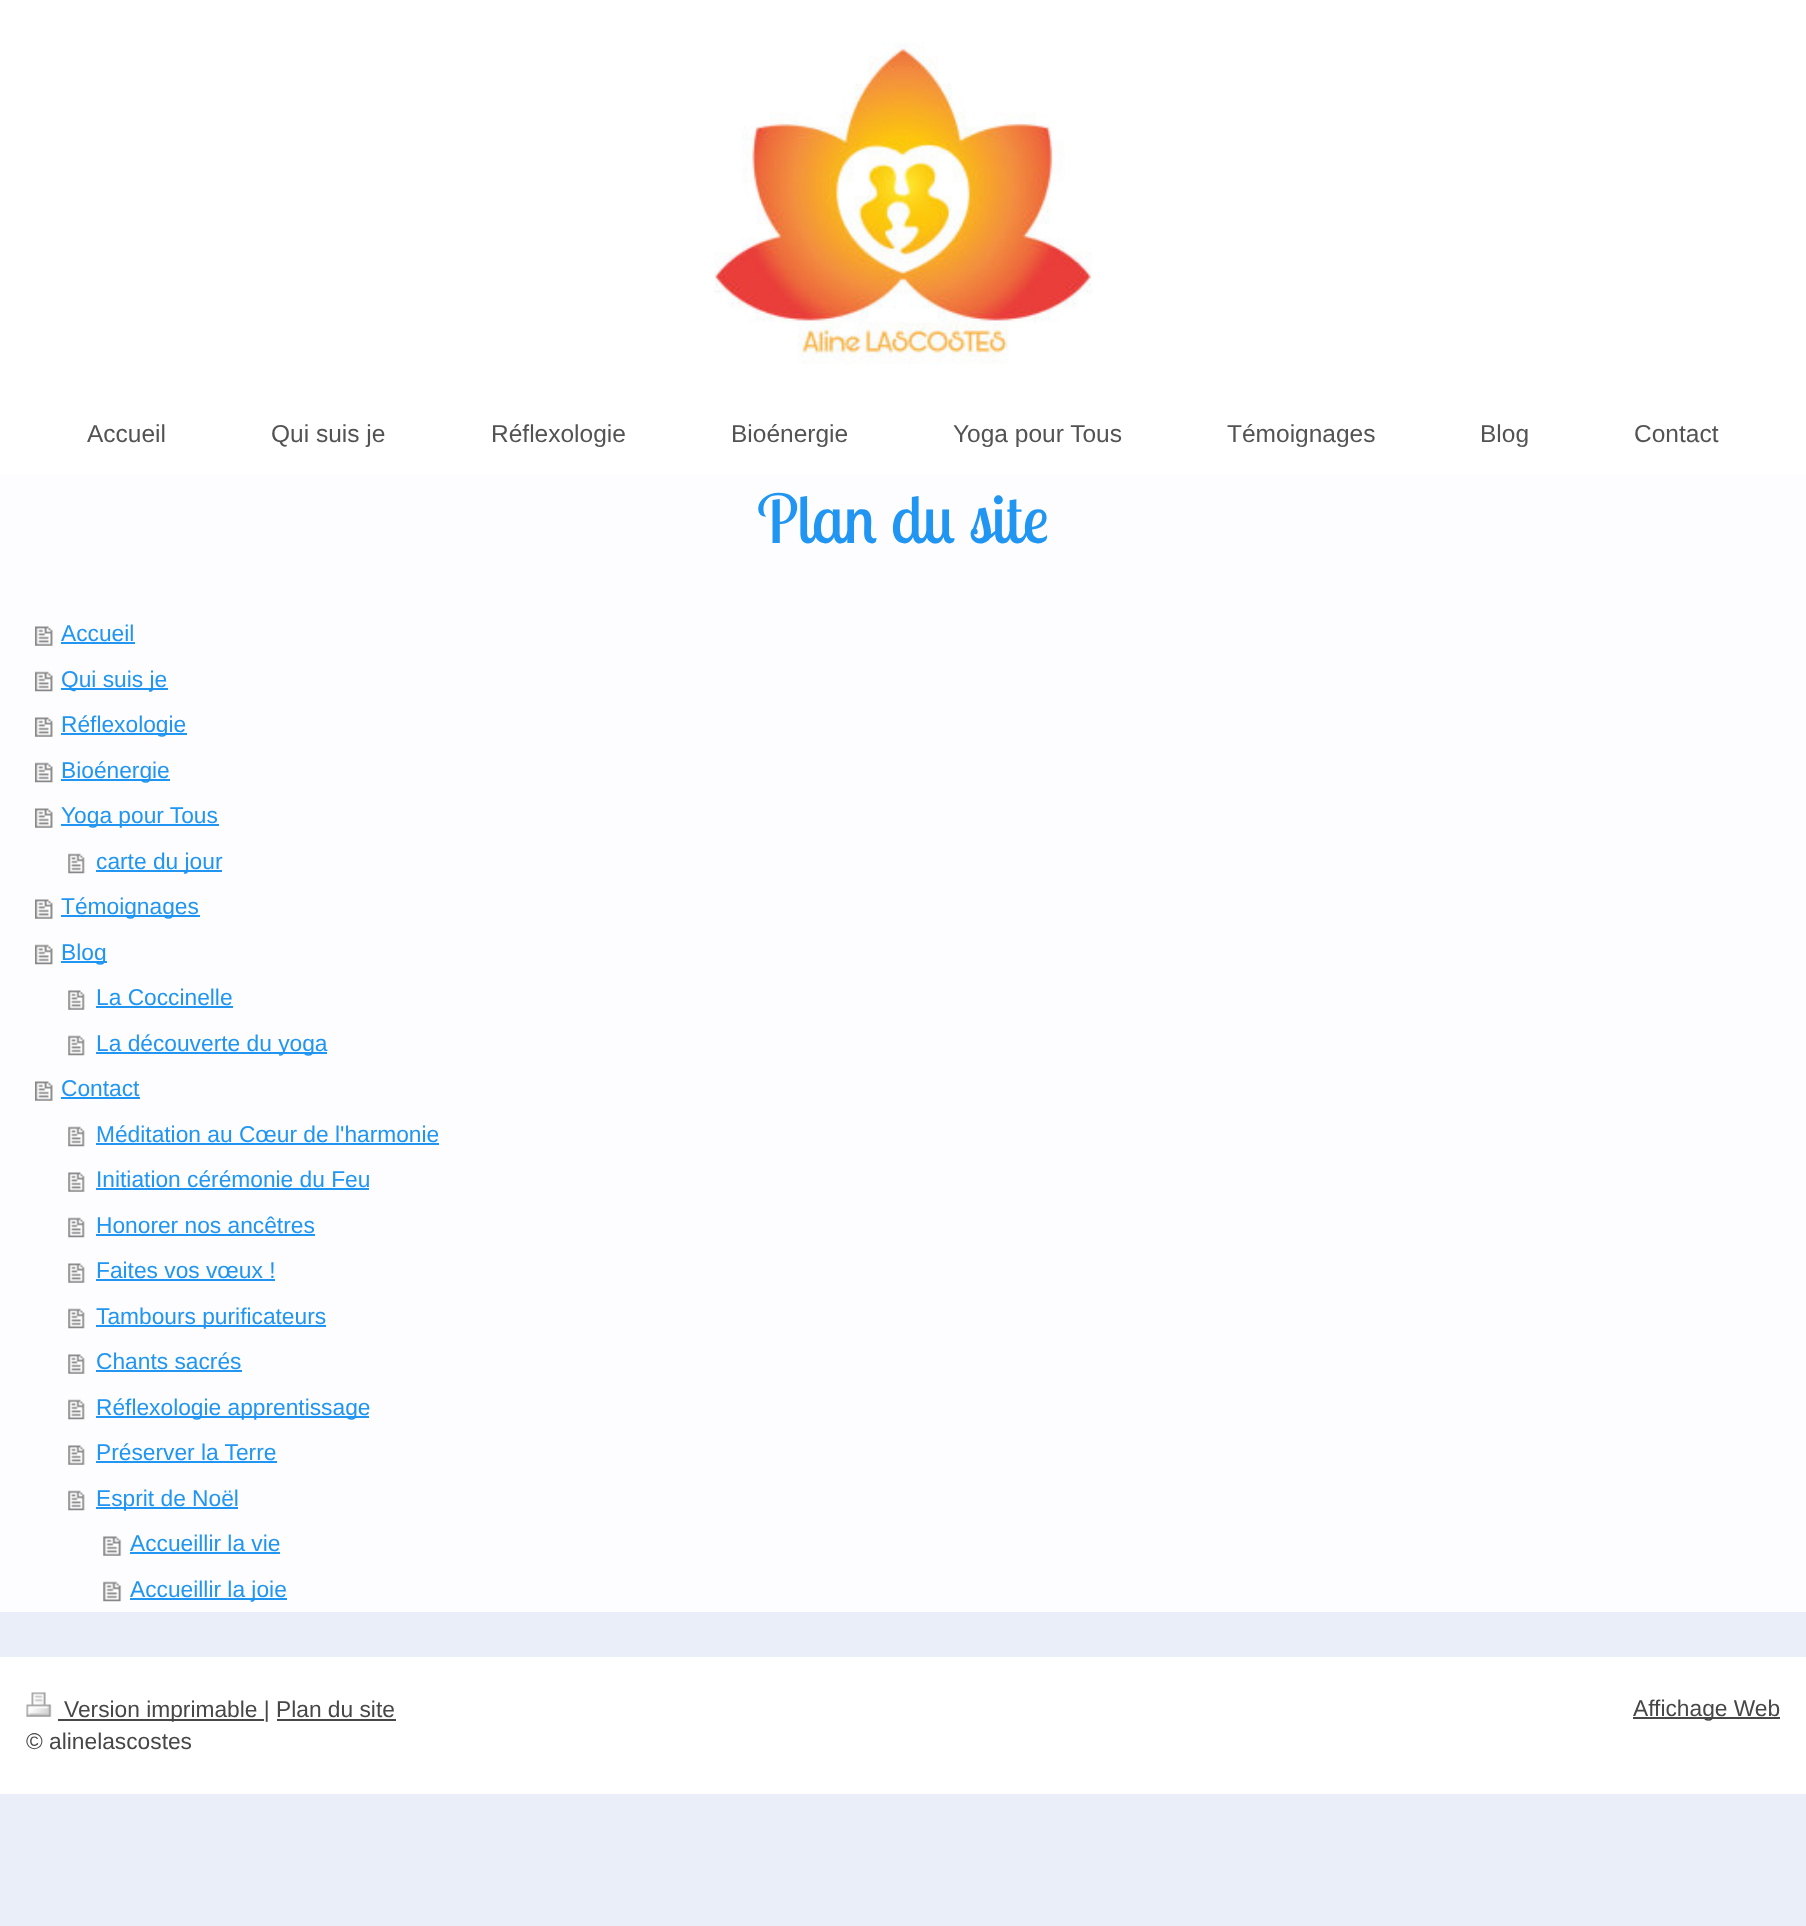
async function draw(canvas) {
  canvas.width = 1806
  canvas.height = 1926
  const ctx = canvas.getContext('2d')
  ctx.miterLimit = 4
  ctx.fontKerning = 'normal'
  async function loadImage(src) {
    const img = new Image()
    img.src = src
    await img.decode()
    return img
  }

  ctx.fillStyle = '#eaeef8'
  ctx.fillRect(0, 0, 1806, 1926)
  ctx.fillStyle = '#fff'
  ctx.fillRect(0, 0, 1806, 474)
  ctx.drawImage(await loadImage('image0.png'), 714, 42, 379, 322)
  ctx.font = '24.5px Liberation Sans'
  ctx.fillStyle = '#535353'
  ctx.fillText('Accueil', 87, 442)
  ctx.fillText('Qui suis je', 271, 442)
  ctx.fillText('Réflexologie', 491, 442)
  ctx.fillText('Bioénergie', 731, 442)
  ctx.fillText('Yoga pour Tous', 953, 442)
  ctx.fillText('Témoignages', 1227, 442)
  ctx.fillText('Blog', 1480, 442)
  ctx.fillText('Contact', 1634, 442)
  ctx.fillStyle = '#fdfdff'
  ctx.fillRect(0, 474, 1806, 1138)
  ctx.font = '67px Lobster Two'
  ctx.fillStyle = '#2095f2'
  ctx.fillText('Plan du site', 757, 543)
  ctx.drawImage(await loadImage('image1.png'), 35, 626, 18, 20)
  ctx.font = '22.75px Liberation Sans'
  ctx.fillText('Accueil', 61, 641)
  ctx.fillRect(61, 642, 74, 2)
  ctx.drawImage(await loadImage('image2.png'), 35, 671, 18, 21)
  ctx.fillRect(61, 688, 107, 2)
  ctx.fillText('Qui suis je', 61, 687)
  ctx.drawImage(await loadImage('image1.png'), 35, 717, 18, 20)
  ctx.fillRect(61, 733, 126, 2)
  ctx.fillText('Réflexologie', 61, 732)
  ctx.drawImage(await loadImage('image2.png'), 35, 762, 18, 21)
  ctx.fillRect(61, 779, 109, 2)
  ctx.fillText('Bioénergie', 61, 778)
  ctx.drawImage(await loadImage('image1.png'), 35, 808, 18, 20)
  ctx.fillRect(61, 824, 158, 2)
  ctx.fillText('Yoga pour Tous', 61, 823)
  ctx.drawImage(await loadImage('image3.png'), 68, 853, 17, 21)
  ctx.fillRect(96, 870, 126, 2)
  ctx.fillText('carte du jour', 96, 869)
  ctx.drawImage(await loadImage('image1.png'), 35, 899, 18, 20)
  ctx.fillRect(61, 915, 139, 2)
  ctx.fillText('Témoignages', 61, 914)
  ctx.drawImage(await loadImage('image2.png'), 35, 944, 18, 21)
  ctx.fillRect(61, 961, 46, 2)
  ctx.fillText('Blog', 61, 960)
  ctx.drawImage(await loadImage('image4.png'), 68, 990, 17, 20)
  ctx.fillText('La Coccinelle', 96, 1005)
  ctx.fillRect(96, 1006, 137, 2)
  ctx.drawImage(await loadImage('image3.png'), 68, 1035, 17, 21)
  ctx.fillRect(96, 1052, 231, 2)
  ctx.fillText('La découverte du yoga', 96, 1051)
  ctx.drawImage(await loadImage('image1.png'), 35, 1081, 18, 20)
  ctx.fillText('Contact', 61, 1096)
  ctx.fillRect(61, 1097, 79, 2)
  ctx.drawImage(await loadImage('image3.png'), 68, 1126, 17, 21)
  ctx.fillText('Méditation au Cœur de l\'harmonie', 96, 1142)
  ctx.fillRect(96, 1143, 343, 2)
  ctx.drawImage(await loadImage('image4.png'), 68, 1172, 17, 20)
  ctx.fillText('Initiation cérémonie du Feu', 96, 1187)
  ctx.fillRect(96, 1188, 273, 2)
  ctx.drawImage(await loadImage('image3.png'), 68, 1217, 17, 21)
  ctx.fillText('Honorer nos ancêtres', 96, 1233)
  ctx.fillRect(96, 1234, 219, 2)
  ctx.drawImage(await loadImage('image4.png'), 68, 1263, 17, 20)
  ctx.fillText('Faites vos vœux !', 96, 1278)
  ctx.fillRect(96, 1279, 179, 2)
  ctx.drawImage(await loadImage('image3.png'), 68, 1308, 17, 21)
  ctx.fillRect(96, 1325, 230, 2)
  ctx.fillText('Tambours purificateurs', 96, 1324)
  ctx.drawImage(await loadImage('image4.png'), 68, 1354, 17, 20)
  ctx.fillText('Chants sacrés', 96, 1369)
  ctx.fillRect(96, 1370, 146, 2)
  ctx.drawImage(await loadImage('image3.png'), 68, 1399, 17, 21)
  ctx.fillRect(96, 1416, 273, 2)
  ctx.fillText('Réflexologie apprentissage', 96, 1415)
  ctx.drawImage(await loadImage('image4.png'), 68, 1445, 17, 20)
  ctx.fillText('Préserver la Terre', 96, 1460)
  ctx.fillRect(96, 1461, 181, 2)
  ctx.drawImage(await loadImage('image3.png'), 68, 1490, 17, 21)
  ctx.fillRect(96, 1507, 142, 2)
  ctx.fillText('Esprit de Noël', 96, 1506)
  ctx.drawImage(await loadImage('image5.png'), 103, 1536, 19, 20)
  ctx.fillText('Accueillir la vie', 130, 1551)
  ctx.fillRect(130, 1552, 150, 2)
  ctx.drawImage(await loadImage('image6.png'), 103, 1581, 19, 21)
  ctx.fillRect(130, 1598, 157, 2)
  ctx.fillText('Accueillir la joie', 130, 1597)
  ctx.fillStyle = '#fff'
  ctx.fillRect(0, 1657, 1806, 137)
  ctx.drawImage(await loadImage('image7.png'), 26, 1692, 26, 25)
  ctx.fillStyle = '#474747'
  ctx.fillRect(58, 1719, 206, 2)
  ctx.fillText('Version imprimable | Plan du site', 64, 1717)
  ctx.fillRect(277, 1719, 119, 2)
  ctx.fillText('© alinelascostes', 26, 1749)
  ctx.fillRect(1633, 1717, 147, 2)
  ctx.fillText('Affichage Web', 1633, 1716)
}

draw(document.querySelector('canvas'))
